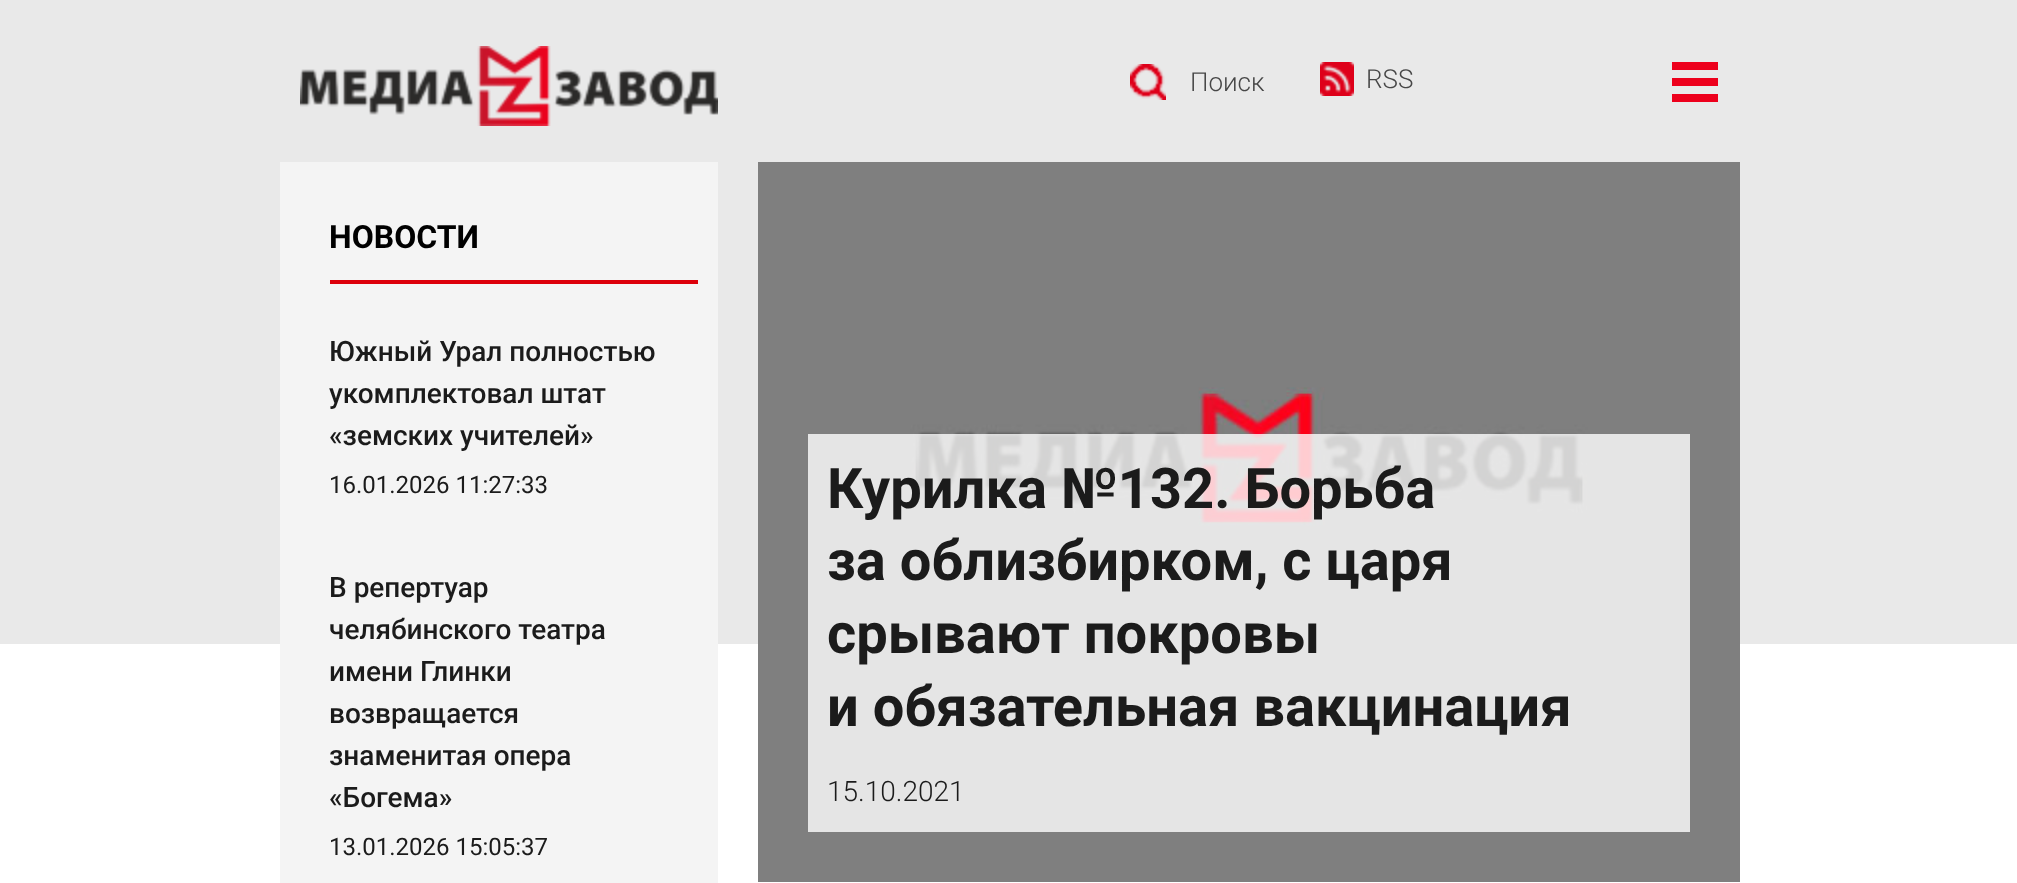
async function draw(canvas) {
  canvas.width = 2017
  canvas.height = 883
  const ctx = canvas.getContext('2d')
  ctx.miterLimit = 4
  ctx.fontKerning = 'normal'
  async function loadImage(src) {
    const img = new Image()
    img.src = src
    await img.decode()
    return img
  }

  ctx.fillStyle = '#fff'
  ctx.fillRect(0, 0, 2017, 883)
  ctx.fillStyle = '#e9e9e9'
  ctx.fillRect(0, 0, 2017, 644)
  ctx.drawImage(await loadImage('image0.png'), 300, 46, 418, 80)
  ctx.drawImage(await loadImage('image1.png'), 1130, 64, 36, 36)
  ctx.font = '300 26px Roboto'
  ctx.fillStyle = '#474747'
  ctx.fillText('Поиск', 1190, 91)
  ctx.drawImage(await loadImage('image2.png'), 1320, 62, 34, 34)
  ctx.fillText('RSS', 1366, 88)
  ctx.fillStyle = '#ed001c'
  ctx.fillRect(1672, 62, 46, 8)
  ctx.fillRect(1672, 78, 46, 8)
  ctx.fillRect(1672, 94, 46, 8)
  ctx.fillStyle = '#f4f4f4'
  ctx.fillRect(280, 162, 438, 721)
  ctx.font = 'bold 32px Roboto'
  ctx.fillStyle = '#000'
  ctx.fillText('НОВОСТИ', 329, 248)
  ctx.fillStyle = '#dd000a'
  ctx.fillRect(330, 280, 368, 4)
  ctx.font = '500 28px Roboto'
  ctx.fillStyle = '#1b1b1b'
  ctx.fillText('Южный Урал полностью', 329, 361)
  ctx.fillText('укомплектовал штат', 329, 403)
  ctx.fillText('«земских учителей»', 329, 445)
  ctx.font = '24px Roboto'
  ctx.fillText('16.01.2026 11:27:33', 329, 493)
  ctx.font = '500 28px Roboto'
  ctx.fillText('В репертуар', 329, 597)
  ctx.fillText('челябинского театра', 329, 639)
  ctx.fillText('имени Глинки', 329, 681)
  ctx.fillText('возвращается', 329, 723)
  ctx.fillText('знаменитая опера', 329, 765)
  ctx.fillText('«Богема»', 329, 807)
  ctx.font = '24px Roboto'
  ctx.fillText('13.01.2026 15:05:37', 329, 855)
  ctx.drawImage(await loadImage('image3.png'), 758, 162, 982, 720)
  ctx.fillStyle = '#ffffffcc'
  ctx.fillRect(808, 434, 882, 398)
  ctx.font = 'bold 56px Roboto'
  ctx.fillStyle = '#1b1b1b'
  ctx.fillText('Курилка №132. Борьба', 827, 508)
  ctx.fillText('за облизбирком, с царя', 827, 580)
  ctx.fillText('срывают покровы', 827, 653)
  ctx.fillText('и обязательная вакцинация', 827, 726)
  ctx.font = '300 28px Roboto'
  ctx.fillText('15.10.2021', 827, 801)
}

draw(document.querySelector('canvas'))
